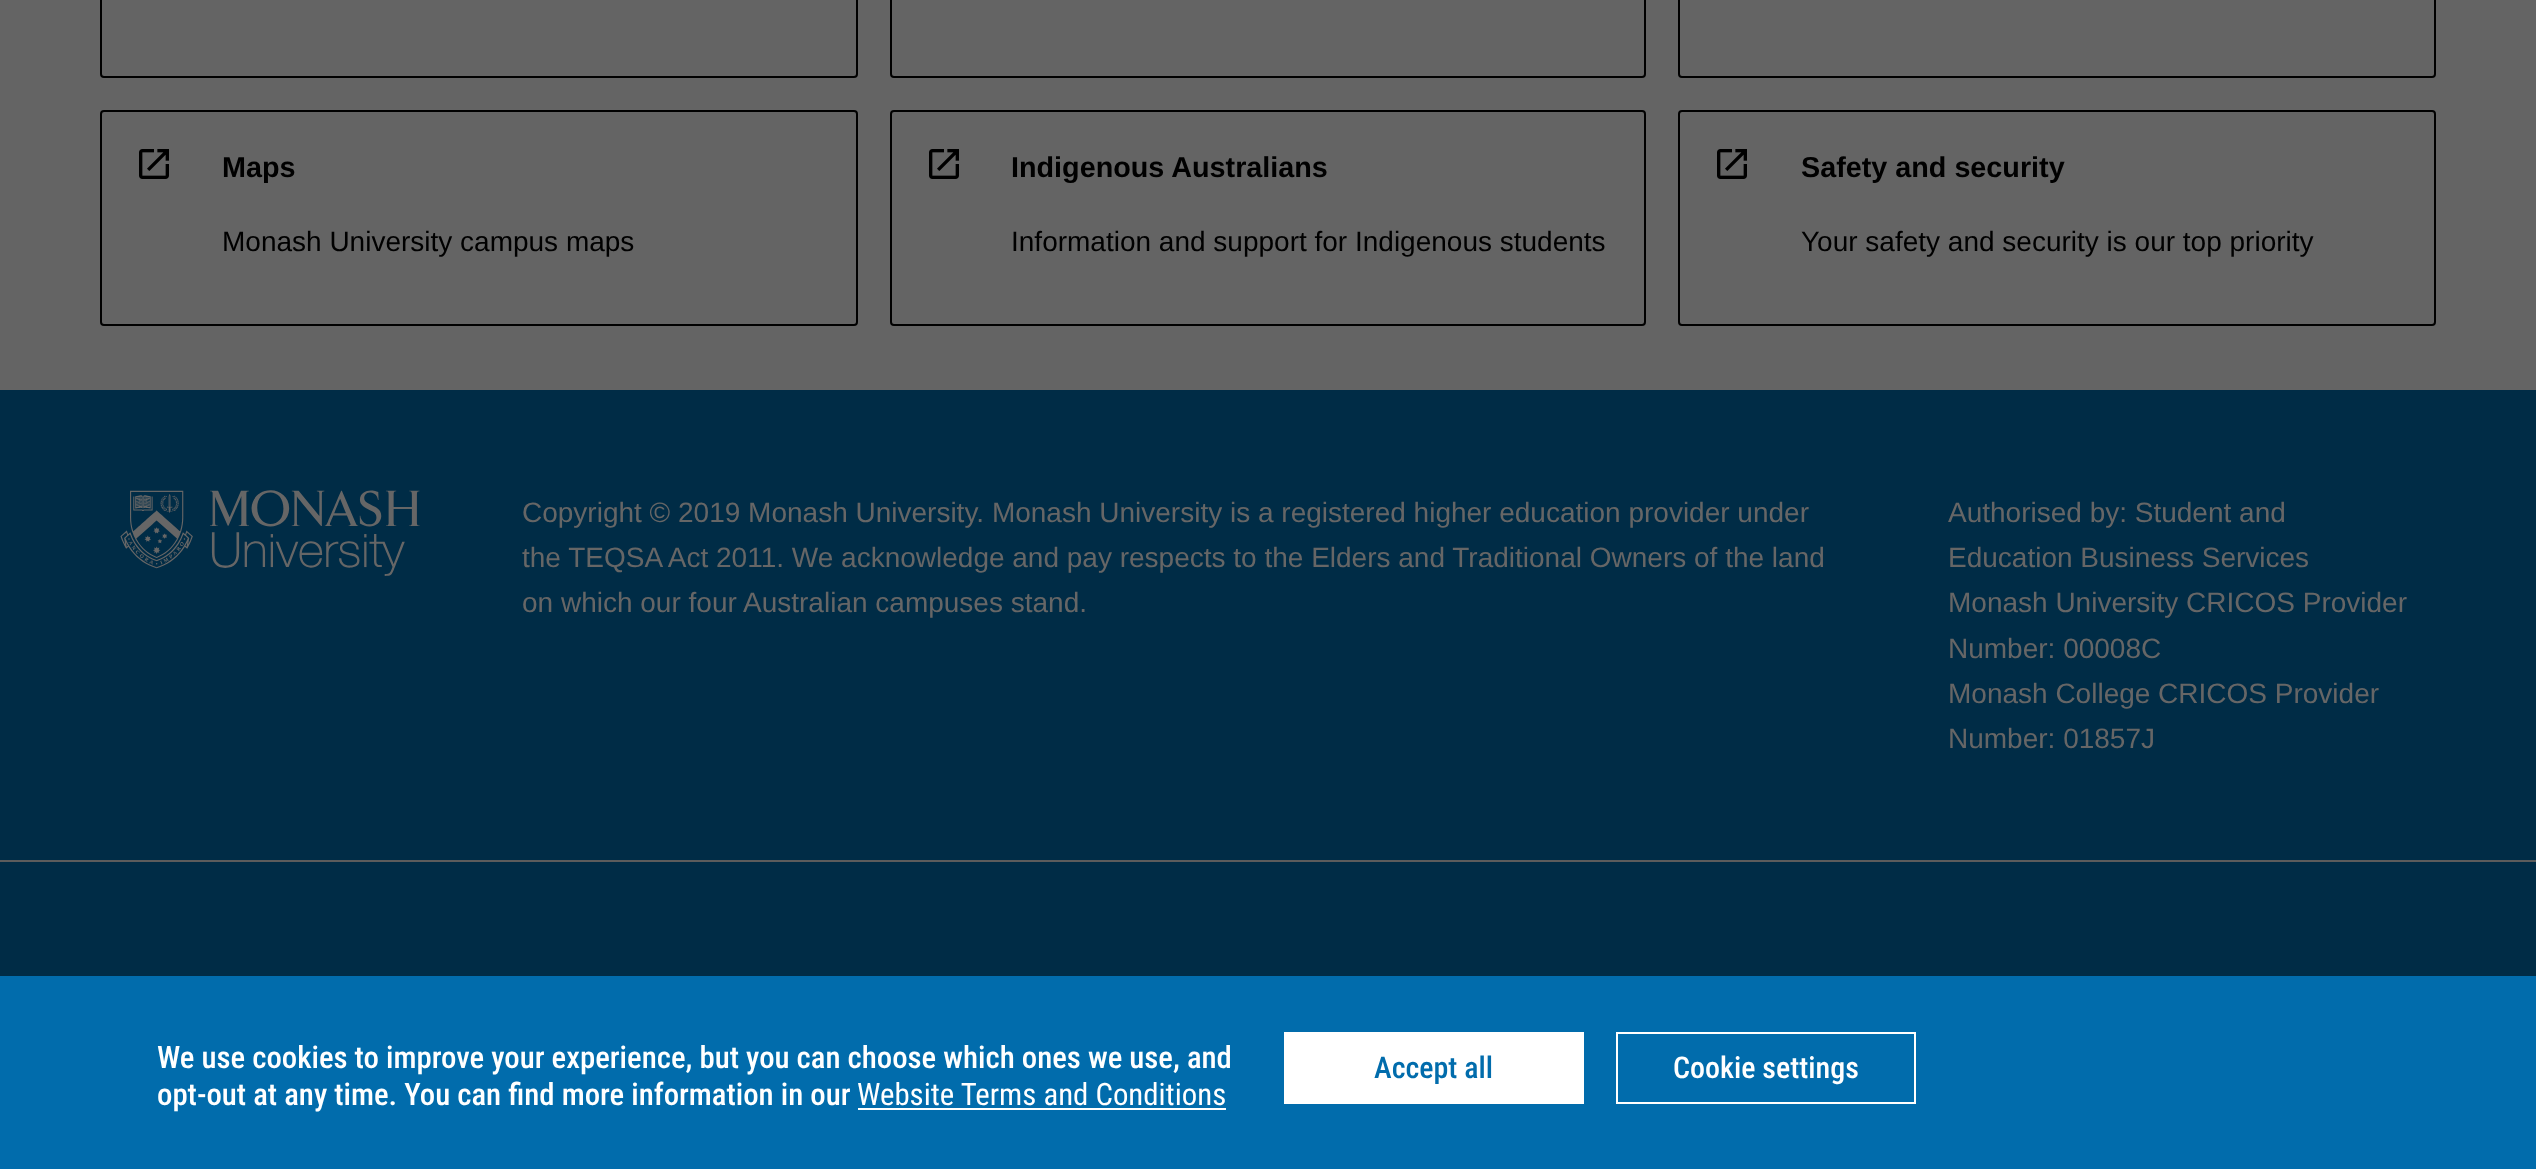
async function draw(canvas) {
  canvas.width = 2536
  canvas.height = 1169
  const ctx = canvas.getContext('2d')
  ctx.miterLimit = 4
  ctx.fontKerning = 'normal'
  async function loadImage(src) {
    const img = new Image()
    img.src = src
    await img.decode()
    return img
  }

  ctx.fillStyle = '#646464'
  ctx.fillRect(0, 0, 2536, 1169)
  ctx.beginPath()
  ctx.roundRect(101, -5, 756, 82, 3)
  ctx.strokeStyle = '#000'
  ctx.lineWidth = 2
  ctx.stroke()
  ctx.beginPath()
  ctx.roundRect(891, -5, 754, 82, 3)
  ctx.stroke()
  ctx.beginPath()
  ctx.roundRect(1679, -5, 756, 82, 3)
  ctx.stroke()
  ctx.beginPath()
  ctx.roundRect(101, 111, 756, 214, 3)
  ctx.stroke()
  ctx.drawImage(await loadImage('image0.png'), 139, 149, 30, 30)
  ctx.font = 'bold 28.75px Liberation Sans'
  ctx.fillStyle = '#000'
  ctx.fillText('Maps', 222, 177)
  ctx.font = '28px Liberation Sans'
  ctx.fillText('Monash University campus maps', 222, 251)
  ctx.beginPath()
  ctx.roundRect(891, 111, 754, 214, 3)
  ctx.stroke()
  ctx.drawImage(await loadImage('image0.png'), 929, 149, 30, 30)
  ctx.font = 'bold 28.75px Liberation Sans'
  ctx.fillText('Indigenous Australians', 1011, 177)
  ctx.font = '28px Liberation Sans'
  ctx.fillText('Information and support for Indigenous students', 1011, 251)
  ctx.beginPath()
  ctx.roundRect(1679, 111, 756, 214, 3)
  ctx.stroke()
  ctx.drawImage(await loadImage('image0.png'), 1717, 149, 30, 30)
  ctx.font = 'bold 28.75px Liberation Sans'
  ctx.fillText('Safety and security', 1801, 177)
  ctx.font = '28px Liberation Sans'
  ctx.fillText('Your safety and security is our top priority', 1801, 251)
  ctx.fillStyle = '#002c46'
  ctx.fillRect(0, 390, 2536, 586)
  ctx.drawImage(await loadImage('image1.png'), 120, 490, 300, 86)
  ctx.fillStyle = '#666'
  ctx.fillText('Copyright © 2019 Monash University. Monash University is a registered higher education provider under', 522, 522)
  ctx.fillText('the TEQSA Act 2011. We acknowledge and pay respects to the Elders and Traditional Owners of the land', 522, 567)
  ctx.fillText('on which our four Australian campuses stand.', 522, 612)
  ctx.fillText('Authorised by: Student and', 1948, 522)
  ctx.fillText('Education Business Services', 1948, 567)
  ctx.fillText('Monash University CRICOS Provider', 1948, 612)
  ctx.fillText('Number: 00008C', 1948, 658)
  ctx.fillText('Monash College CRICOS Provider', 1948, 703)
  ctx.fillText('Number: 01857J', 1948, 748)
  ctx.fillStyle = '#5c5c5c'
  ctx.fillRect(0, 860, 2536, 2)
  ctx.fillStyle = '#016cac'
  ctx.fillRect(0, 976, 2536, 193)
  ctx.font = '500 30.8px Roboto Condensed'
  ctx.fillStyle = '#fff'
  ctx.fillText('We use cookies to improve your experience, but you can choose which ones we use, and', 157, 1068)
  ctx.fillText('opt-out at any time. You can find more information in our', 157, 1105)
  ctx.font = '30.8px Roboto Condensed'
  ctx.fillText('Website Terms and Conditions', 857, 1105)
  ctx.fillRect(858, 1108, 368, 2)
  ctx.fillRect(1284, 1032, 300, 72)
  ctx.font = '500 30px Roboto Condensed'
  ctx.fillStyle = '#016cac'
  ctx.fillText('Accept all', 1374, 1078)
  ctx.strokeStyle = '#fff'
  ctx.strokeRect(1617, 1033, 298, 70)
  ctx.fillStyle = '#fff'
  ctx.fillText('Cookie settings', 1673, 1078)
}

draw(document.querySelector('canvas'))
